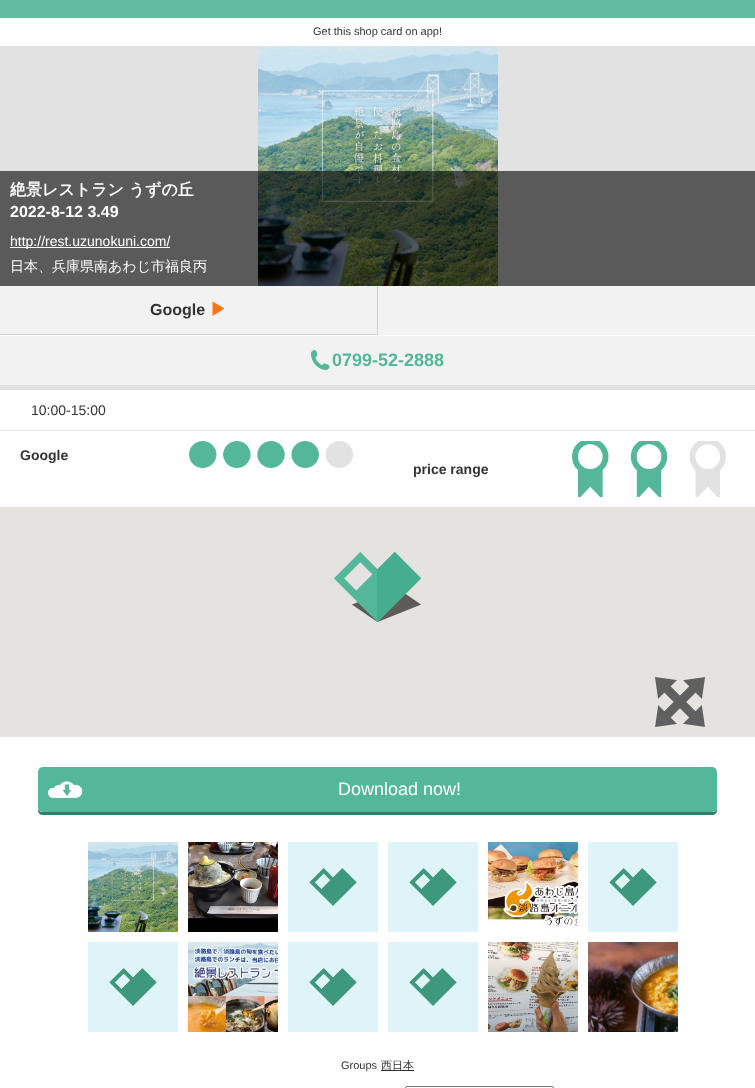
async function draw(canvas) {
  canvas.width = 755
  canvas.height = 1088
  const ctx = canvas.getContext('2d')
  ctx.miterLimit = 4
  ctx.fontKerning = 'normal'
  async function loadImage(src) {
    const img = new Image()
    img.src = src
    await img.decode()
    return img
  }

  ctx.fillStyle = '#fff'
  ctx.fillRect(0, 0, 755, 1088)
  ctx.fillStyle = '#63bca2'
  ctx.fillRect(0, 0, 755, 18)
  ctx.font = '11px Liberation Sans'
  ctx.fillStyle = '#333'
  ctx.fillText('Get this shop card on app!', 313, 35)
  ctx.fillStyle = '#f2f2f2'
  ctx.fillRect(0, 286, 755, 99)
  ctx.fillStyle = '#d0d0d0'
  ctx.fillRect(377, 285, 1, 50)
  ctx.fillStyle = '#e2e2e2'
  ctx.fillRect(0, 46, 755, 240)
  ctx.drawImage(await loadImage('image0.png'), 258, 46, 240, 240)
  ctx.fillStyle = '#00000099'
  ctx.fillRect(0, 171, 755, 115)
  ctx.font = 'bold 16px WenQuanYi Zen Hei'
  ctx.fillStyle = '#fff'
  ctx.fillText('絶景レストラン うずの丘', 10, 195)
  ctx.font = 'bold 16px Liberation Sans'
  ctx.fillText('2022-8-12 3.49', 10, 217)
  ctx.fillRect(10, 247, 160, 1)
  ctx.font = '14px Liberation Sans'
  ctx.fillText('http://rest.uzunokuni.com/', 10, 246)
  ctx.font = '500 14px WenQuanYi Zen Hei'
  ctx.fillText('日本、兵庫県南あわじ市福良丙', 10, 271)
  ctx.fillStyle = '#e2e2e2'
  ctx.fillRect(0, 385, 755, 5)
  ctx.fillStyle = '#d0d0d0'
  ctx.fillRect(0, 334, 378, 1)
  ctx.font = 'bold 16px Liberation Sans'
  ctx.fillStyle = '#333'
  ctx.fillText('Google', 150, 315)
  ctx.fillStyle = '#ff7611'
  ctx.beginPath()
  ctx.moveTo(212.5, 316)
  ctx.lineTo(224.5, 308.5)
  ctx.lineTo(212.5, 301.5)
  ctx.closePath()
  ctx.fill()
  ctx.fillStyle = '#fff'
  ctx.fillRect(0, 335, 755, 1)
  ctx.drawImage(await loadImage('image1.png'), 311, 350, 19, 20)
  ctx.font = 'bold 18px Liberation Sans'
  ctx.fillStyle = '#54b79a'
  ctx.fillText('0799-52-2888', 332, 366)
  ctx.fillStyle = '#e2e2e2'
  ctx.fillRect(0, 430, 755, 1)
  ctx.font = '14px Liberation Sans'
  ctx.fillStyle = '#333'
  ctx.fillText('10:00-15:00', 31, 415)
  ctx.font = 'bold 14px Liberation Sans'
  ctx.fillText('Google', 20, 460)
  ctx.drawImage(await loadImage('image2.png'), 189, 441, 164, 27)
  ctx.fillText('price range', 413, 474)
  ctx.drawImage(await loadImage('image3.png'), 572, 441, 154, 56)
  ctx.fillStyle = '#e5e3df'
  ctx.fillRect(0, 507, 755, 230)
  ctx.drawImage(await loadImage('image4.png'), 334, 552, 87, 70)
  ctx.drawImage(await loadImage('image5.png'), 655, 677, 50, 50)
  ctx.fillStyle = '#308169'
  ctx.beginPath()
  ctx.moveTo(38, 807)
  ctx.lineTo(38, 810)
  ctx.bezierCurveTo(38, 813, 40, 815, 43, 815)
  ctx.lineTo(712, 815)
  ctx.bezierCurveTo(715, 815, 717, 813, 717, 810)
  ctx.lineTo(717, 807)
  ctx.bezierCurveTo(717, 810, 715, 812, 712, 812)
  ctx.lineTo(43, 812)
  ctx.bezierCurveTo(40, 812, 38, 810, 38, 807)
  ctx.closePath()
  ctx.fill()
  ctx.fillStyle = '#54b79a'
  ctx.beginPath()
  ctx.roundRect(38, 767, 679, 45, 5)
  ctx.fill()
  ctx.drawImage(await loadImage('image6.png'), 48, 781, 35, 17)
  ctx.font = '18px Liberation Sans'
  ctx.fillStyle = '#fff'
  ctx.fillText('Download now!', 338, 795)
  ctx.drawImage(await loadImage('image7.png'), 88, 842, 90, 90)
  ctx.drawImage(await loadImage('image8.png'), 188, 842, 90, 90)
  ctx.drawImage(await loadImage('image9.png'), 288, 842, 90, 90)
  ctx.drawImage(await loadImage('image9.png'), 388, 842, 90, 90)
  ctx.drawImage(await loadImage('image10.png'), 488, 842, 90, 87)
  ctx.drawImage(await loadImage('image9.png'), 588, 842, 90, 90)
  ctx.drawImage(await loadImage('image9.png'), 88, 942, 90, 90)
  ctx.drawImage(await loadImage('image11.png'), 188, 942, 90, 90)
  ctx.drawImage(await loadImage('image9.png'), 288, 942, 90, 90)
  ctx.drawImage(await loadImage('image9.png'), 388, 942, 90, 90)
  ctx.drawImage(await loadImage('image12.png'), 488, 942, 90, 90)
  ctx.drawImage(await loadImage('image13.png'), 588, 942, 90, 90)
  ctx.font = '11px Liberation Sans'
  ctx.fillStyle = '#333'
  ctx.fillText('Groups', 341, 1069)
  ctx.fillRect(381, 1070, 33, 1)
  ctx.font = '500 11px WenQuanYi Zen Hei'
  ctx.fillText('西日本', 381, 1069)
  ctx.beginPath()
  ctx.roundRect(405.5, 1086.5, 148, 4, 1.5)
  ctx.strokeStyle = '#767676'
  ctx.stroke()
}

draw(document.querySelector('canvas'))
